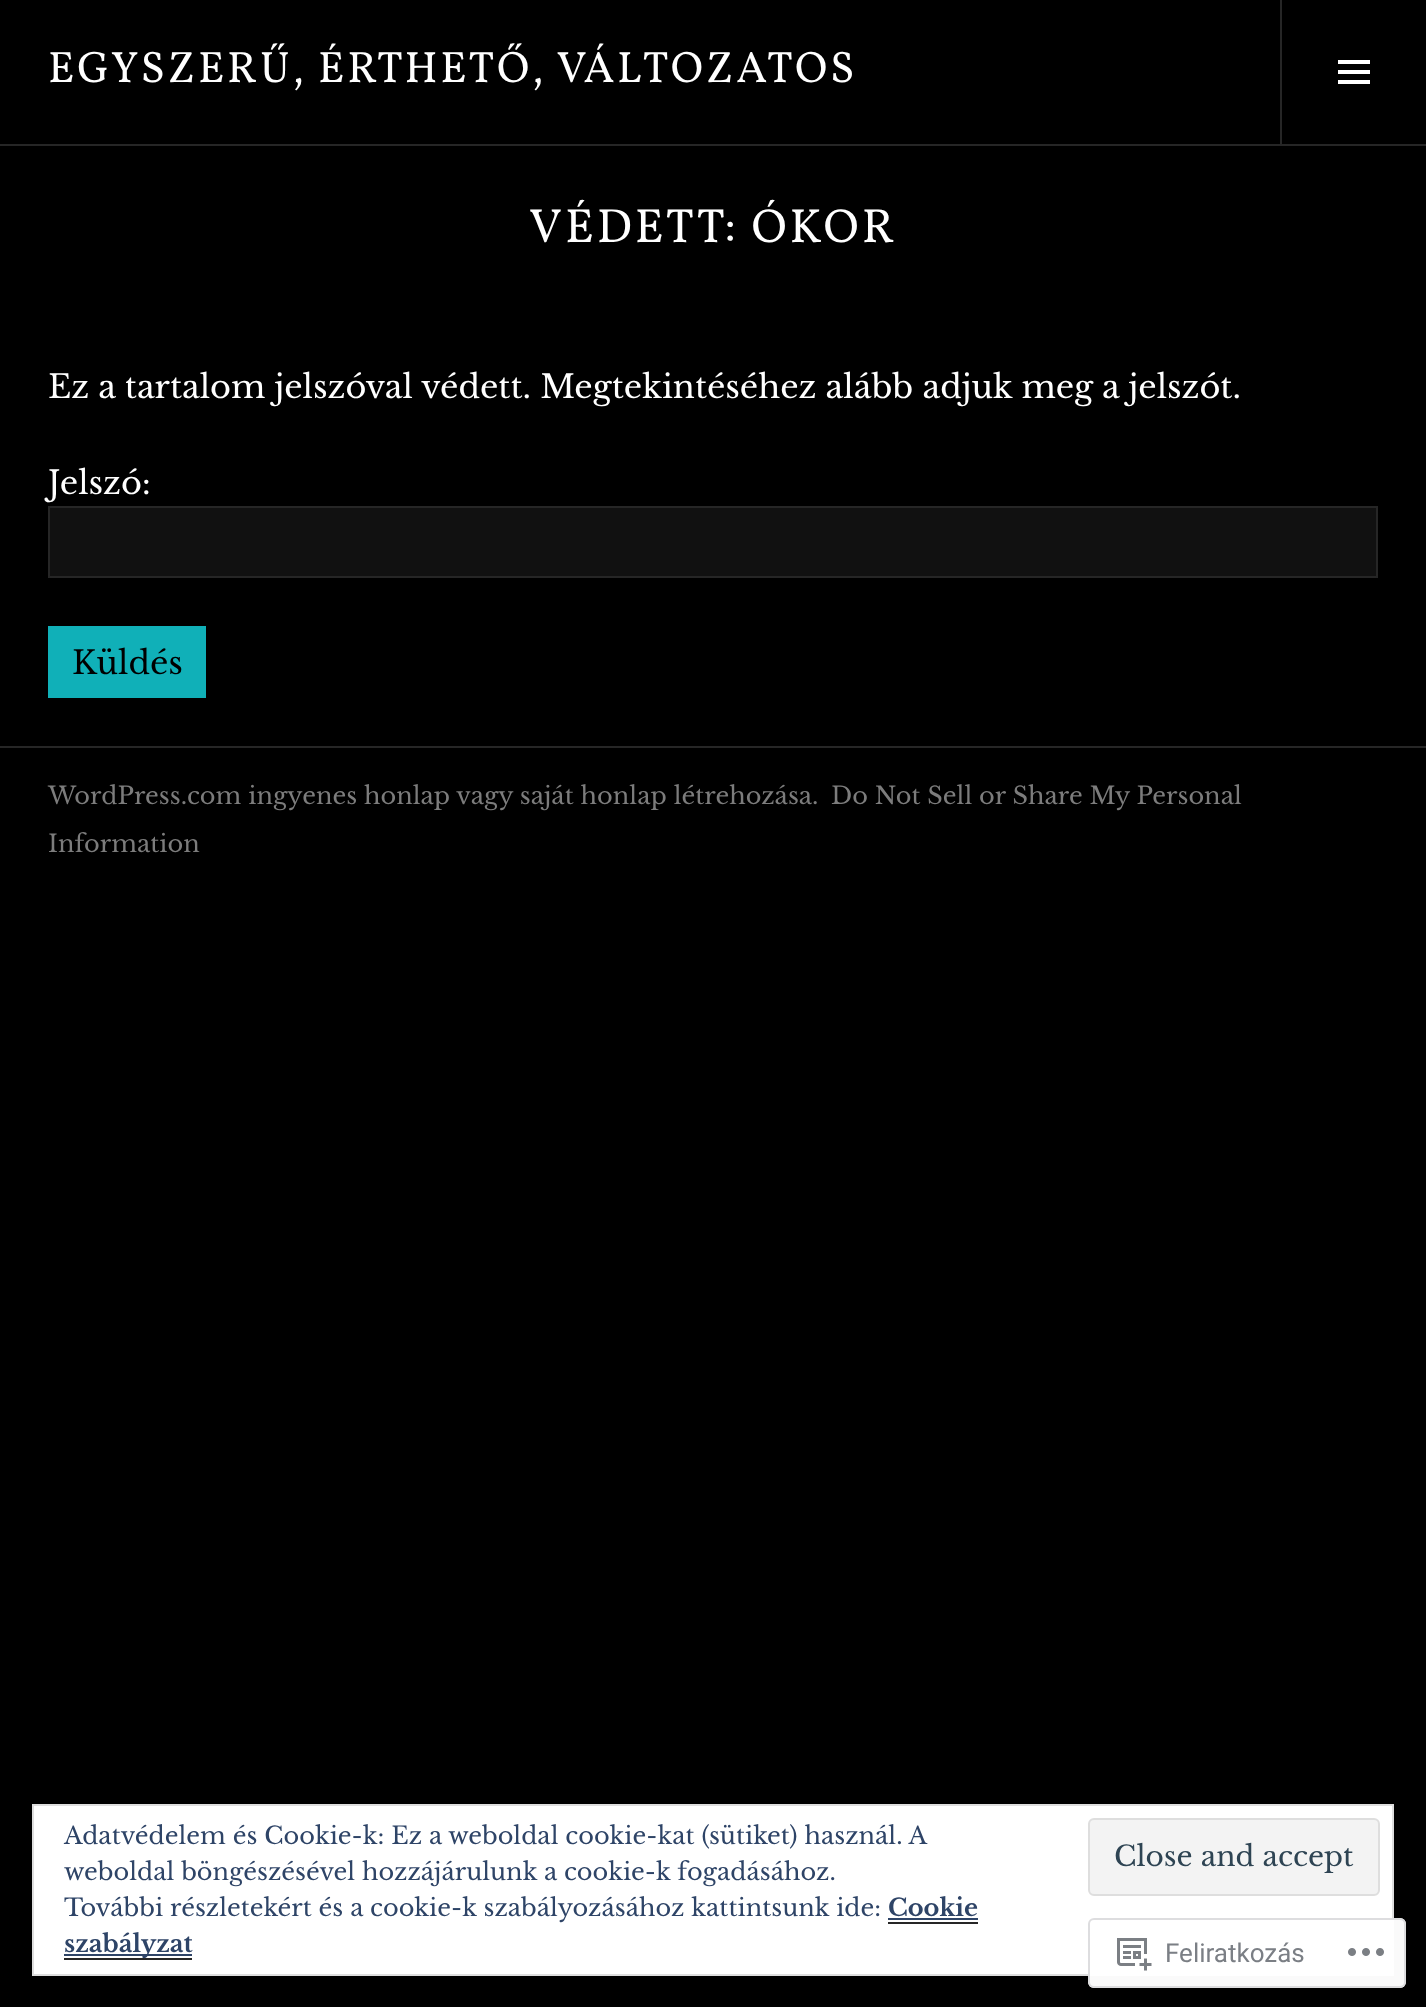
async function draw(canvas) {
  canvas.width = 1426
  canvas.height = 2007
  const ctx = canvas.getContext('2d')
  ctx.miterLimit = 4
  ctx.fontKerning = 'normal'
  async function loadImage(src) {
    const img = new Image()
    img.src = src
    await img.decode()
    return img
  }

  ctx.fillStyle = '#000'
  ctx.fillRect(0, 0, 1426, 2007)
  ctx.fillStyle = '#262626'
  ctx.fillRect(0, 144, 1426, 2)
  ctx.letterSpacing = '2.75px'
  ctx.font = '44px Vollkorn'
  ctx.fillStyle = '#fff'
  ctx.fillText('EGYSZERŰ, ÉRTHETŐ, VÁLTOZATOS', 48, 82)
  ctx.fillStyle = '#262626'
  ctx.fillRect(1280, 0, 2, 144)
  ctx.drawImage(await loadImage('image0.png'), 1338, 60, 32, 24)
  ctx.letterSpacing = '3px'
  ctx.font = '48px Vollkorn'
  ctx.fillStyle = '#fff'
  ctx.fillText('VÉDETT: ÓKOR', 529, 242)
  ctx.letterSpacing = '0px'
  ctx.font = '32px Libre Baskerville'
  ctx.fillText('Ez a tartalom jelszóval védett. Megtekintéséhez alább adjuk meg a jelszót.', 48, 398)
  ctx.fillText('Jelszó:', 48, 494)
  ctx.fillStyle = '#111'
  ctx.beginPath()
  ctx.rect(49, 507, 1328, 70)
  ctx.fill()
  ctx.strokeStyle = '#262626'
  ctx.lineWidth = 2
  ctx.stroke()
  ctx.fillStyle = '#10b0b8'
  ctx.fillRect(48, 626, 158, 72)
  ctx.fillStyle = '#000'
  ctx.fillText('Küldés', 72, 674)
  ctx.fillStyle = '#262626'
  ctx.fillRect(0, 746, 1426, 2)
  ctx.font = '24px Libre Baskerville'
  ctx.fillStyle = '#7c7c7c'
  ctx.fillText('WordPress.com ingyenes honlap vagy saját honlap létrehozása.', 48, 804)
  ctx.fillText('Do Not Sell or Share My Personal', 831, 804)
  ctx.fillText('Information', 48, 852)
  ctx.fillStyle = '#fff'
  ctx.beginPath()
  ctx.rect(33, 1805, 1360, 170)
  ctx.fill()
  ctx.strokeStyle = '#dedede'
  ctx.stroke()
  ctx.fillStyle = '#2e4467'
  ctx.fillText('Adatvédelem és Cookie-k: Ez a weboldal cookie-kat (sütiket) használ. A', 64, 1844)
  ctx.fillText('weboldal böngészésével hozzájárulunk a cookie-k fogadásához.', 64, 1880)
  ctx.fillStyle = '#f3f3f3'
  ctx.beginPath()
  ctx.roundRect(1089, 1819, 290, 76, 5)
  ctx.fill()
  ctx.stroke()
  ctx.font = '28px Libre Baskerville'
  ctx.fillStyle = '#2e4453'
  ctx.fillText('Close and accept', 1114, 1866)
  ctx.font = '24px Libre Baskerville'
  ctx.fillStyle = '#2e4467'
  ctx.fillText('További részletekért és a cookie-k szabályozásához kattintsunk ide:', 64, 1916)
  ctx.font = 'bold 24px Libre Baskerville'
  ctx.fillText('Cookie', 888, 1916)
  ctx.fillStyle = '#262626'
  ctx.fillRect(888, 1922, 90, 2)
  ctx.fillStyle = '#2e4467'
  ctx.fillRect(888, 1918, 90, 2)
  ctx.fillStyle = '#262626'
  ctx.fillRect(64, 1958, 128, 2)
  ctx.fillStyle = '#2e4467'
  ctx.fillRect(64, 1954, 128, 2)
  ctx.fillText('szabályzat', 64, 1952)
  ctx.fillStyle = '#fffffffa'
  ctx.beginPath()
  ctx.roundRect(1088, 1918, 318, 70, 6)
  ctx.fill()
  ctx.beginPath()
  ctx.roundRect(1089, 1919, 316, 68, 5)
  ctx.strokeStyle = '#dcdcdefa'
  ctx.stroke()
  ctx.drawImage(await loadImage('image1.png'), 1117, 1938, 35, 33)
  ctx.font = '26px Roboto'
  ctx.fillStyle = '#7b7f85'
  ctx.fillText('Feliratkozás', 1165, 1962)
  ctx.drawImage(await loadImage('image2.png'), 1348, 1948, 36, 8)
}

draw(document.querySelector('canvas'))
